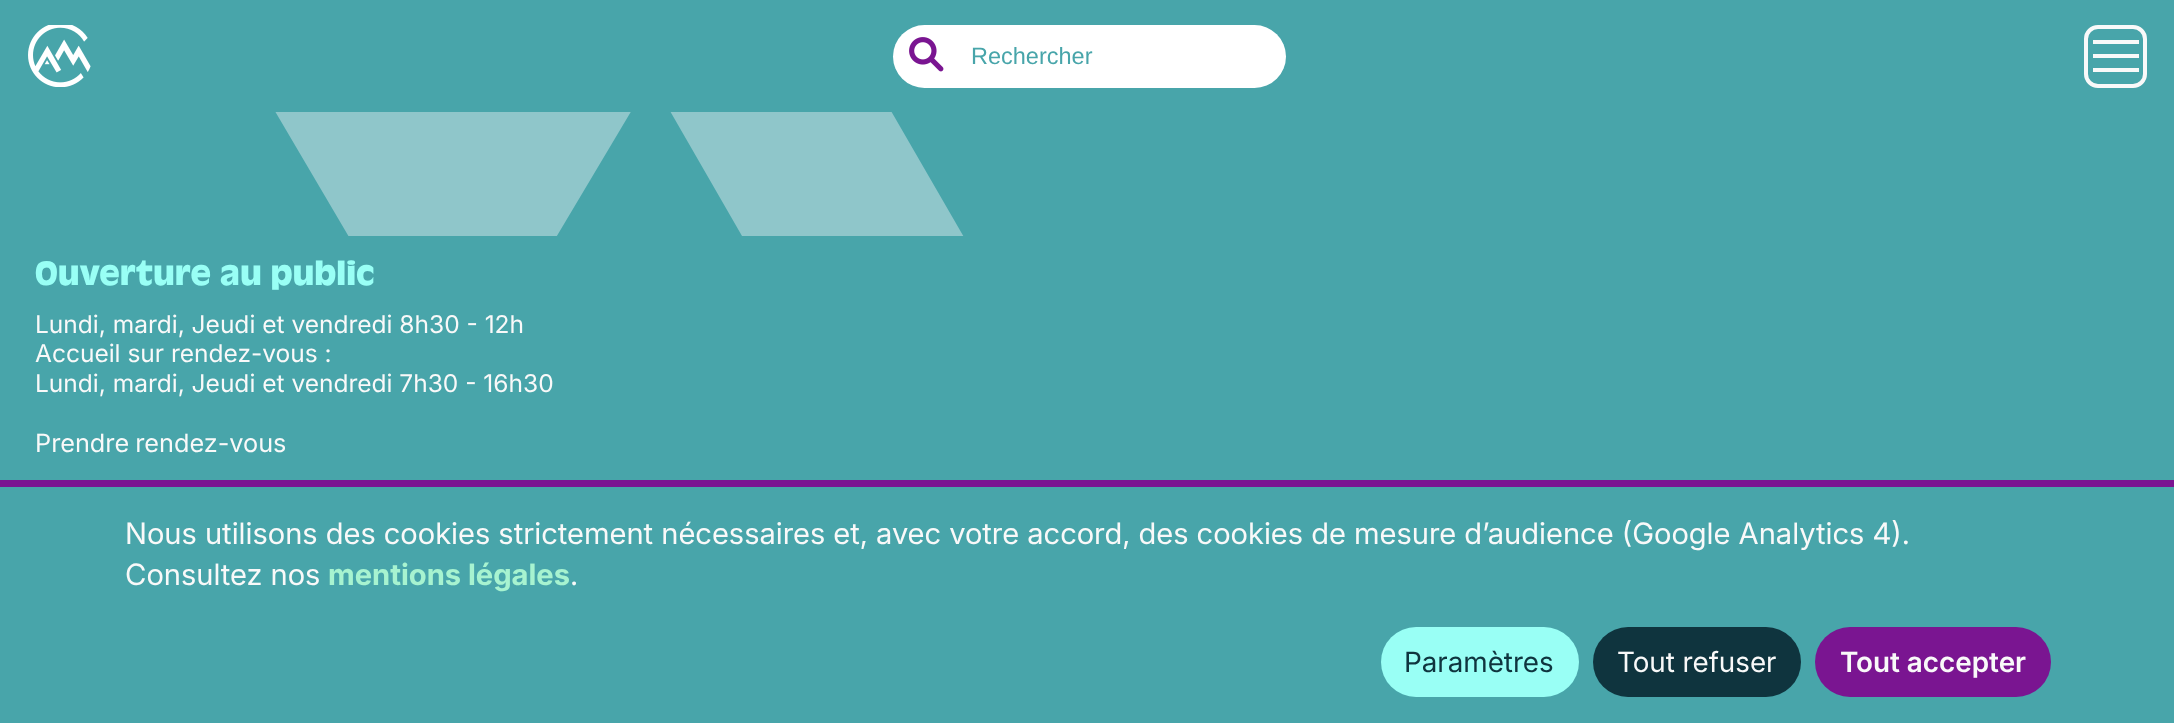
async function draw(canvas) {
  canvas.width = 2174
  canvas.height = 723
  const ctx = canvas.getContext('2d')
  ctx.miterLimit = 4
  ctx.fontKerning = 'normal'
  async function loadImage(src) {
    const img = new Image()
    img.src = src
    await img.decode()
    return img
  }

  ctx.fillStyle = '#48a5aa'
  ctx.fillRect(0, 0, 2174, 723)
  ctx.save()
  ctx.beginPath()
  ctx.rect(0, 0, 1146, 236)
  ctx.clip()
  ctx.fillStyle = '#8fc6ca'
  ctx.beginPath()
  ctx.moveTo(128, -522)
  ctx.lineTo(452, 32)
  ctx.lineTo(643, -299)
  ctx.lineTo(654, -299)
  ctx.lineTo(1146, 552)
  ctx.lineTo(1142, 567)
  ctx.lineTo(984, 656)
  ctx.lineTo(651, 78)
  ctx.lineTo(452, 412)
  ctx.lineTo(126, -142)
  ctx.lineTo(-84, 227)
  ctx.lineTo(-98, 222)
  ctx.lineTo(-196, 53)
  ctx.lineTo(-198, 36)
  ctx.lineTo(123, -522)
  ctx.closePath()
  ctx.fill()
  ctx.restore()
  ctx.fillRect(0, 0, 892, 112)
  ctx.drawImage(await loadImage('image0.png'), 28, 25, 63, 62)
  ctx.fillStyle = '#fff'
  ctx.beginPath()
  ctx.roundRect(893, 25, 393, 63, 31.5)
  ctx.fill()
  ctx.drawImage(await loadImage('image1.png'), 909, 37, 35, 35)
  ctx.font = '23.5px Liberation Sans'
  ctx.fillStyle = '#48a5aa'
  ctx.fillText('Rechercher', 971, 64)
  ctx.beginPath()
  ctx.roundRect(2086, 27, 59, 59, 12)
  ctx.strokeStyle = '#f9f9f9'
  ctx.lineWidth = 4
  ctx.stroke()
  ctx.fillStyle = '#f9f9f9'
  ctx.fillRect(2093, 40, 46, 4)
  ctx.fillRect(2093, 54, 46, 4)
  ctx.fillRect(2093, 68, 46, 4)
  ctx.font = 'bold 35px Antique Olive'
  ctx.fillStyle = '#99fff5'
  ctx.fillText('Ouverture au public', 35, 285)
  ctx.font = '24.5px Inter'
  ctx.fillStyle = '#f9f9f9'
  ctx.fillText('Lundi, mardi, Jeudi et vendredi 8h30 - 12h', 35, 333)
  ctx.fillText('Accueil sur rendez-vous :', 35, 362)
  ctx.fillText('Lundi, mardi, Jeudi et vendredi 7h30 - 16h30', 35, 392)
  ctx.wordSpacing = '-1px'
  ctx.font = '25.25px Inter'
  ctx.fillText('Prendre rendez-vous', 35, 452)
  ctx.fillStyle = '#7a1591'
  ctx.fillRect(0, 480, 2174, 7)
  ctx.wordSpacing = '0px'
  ctx.font = '29.4px "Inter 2"'
  ctx.fillStyle = '#f9f9f9'
  ctx.fillText('Nous utilisons des cookies strictement nécessaires et, avec votre accord, des cookies de mesure d’audience (Google Analytics 4).', 125, 544)
  ctx.fillText('Consultez nos', 125, 585)
  ctx.font = 'bold 29.4px Inter'
  ctx.fillStyle = '#a7f3d0'
  ctx.fillText('mentions légales', 328, 585)
  ctx.font = '29.4px "Inter 2"'
  ctx.fillStyle = '#f9f9f9'
  ctx.fillText('.', 570, 585)
  ctx.fillStyle = '#99fff5'
  ctx.beginPath()
  ctx.roundRect(1381, 627, 198, 70, 35)
  ctx.fill()
  ctx.font = '28px "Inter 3"'
  ctx.fillStyle = '#0f343e'
  ctx.fillText('Paramètres', 1404, 672)
  ctx.beginPath()
  ctx.roundRect(1593, 627, 208, 70, 35)
  ctx.fill()
  ctx.fillStyle = '#f9f9f9'
  ctx.fillText('Tout refuser', 1617, 672)
  ctx.fillStyle = '#7a1591'
  ctx.beginPath()
  ctx.roundRect(1815, 627, 236, 70, 35)
  ctx.fill()
  ctx.font = '600 28px Inter'
  ctx.fillStyle = '#f9f9f9'
  ctx.fillText('Tout accepter', 1840, 672)
}

draw(document.querySelector('canvas'))
